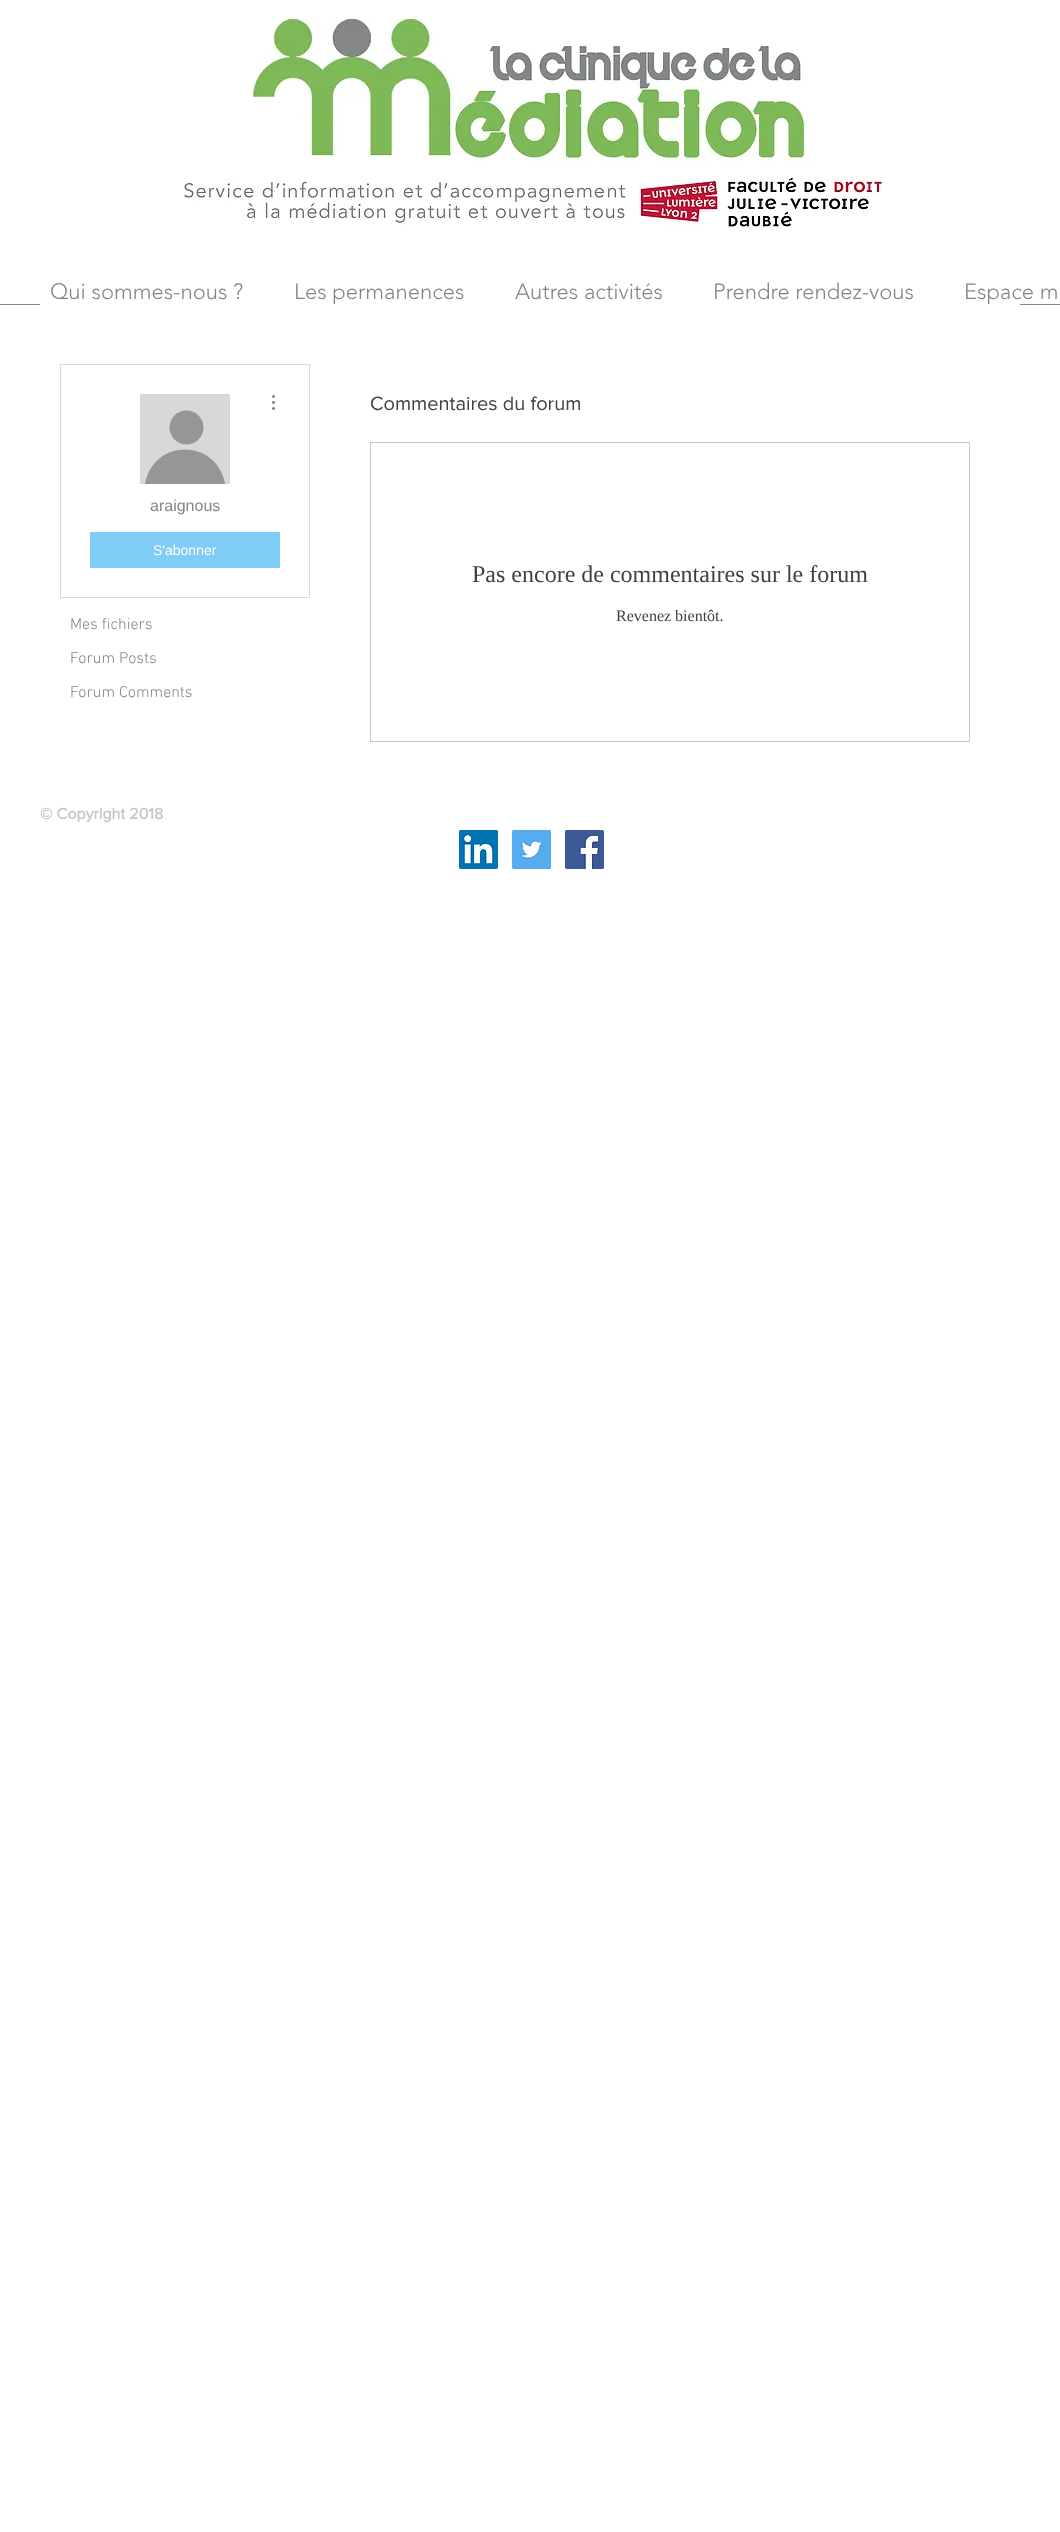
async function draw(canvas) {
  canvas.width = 1060
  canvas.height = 2532
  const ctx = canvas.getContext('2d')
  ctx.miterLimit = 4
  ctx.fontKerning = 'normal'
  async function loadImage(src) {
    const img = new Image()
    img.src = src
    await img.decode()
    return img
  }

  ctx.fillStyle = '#fff'
  ctx.fillRect(0, 0, 1060, 2532)
  ctx.drawImage(await loadImage('image0.png'), 184, 15, 700, 213)
  ctx.font = '300 22px "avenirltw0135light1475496"'
  ctx.fillStyle = '#848686'
  ctx.fillText('Qui sommes-nous ?', 50, 299)
  ctx.fillText('Les permanences', 294, 299)
  ctx.fillText('Autres activités', 515, 299)
  ctx.fillText('Prendre rendez-vous', 713, 299)
  ctx.fillText('Espace m', 964, 299)
  ctx.fillRect(0, 304, 1060, 1)
  ctx.strokeStyle = '#d9d9d9'
  ctx.strokeRect(60.5, 364.5, 249, 233)
  ctx.fillStyle = '#d8d8d8'
  ctx.fillRect(140, 394, 90, 90)
  ctx.fillStyle = '#969696'
  ctx.beginPath()
  ctx.arc(186.5, 427.5, 17, 0, 2 * Math.PI)
  ctx.fill()
  ctx.beginPath()
  ctx.moveTo(225, 484)
  ctx.bezierCurveTo(217, 438, 153, 438, 145, 484)
  ctx.closePath()
  ctx.fill()
  ctx.drawImage(await loadImage('image1.png'), 272, 395, 3, 15)
  ctx.font = '16px Liberation Sans'
  ctx.fillStyle = '#848686'
  ctx.fillText('araignous', 150, 511)
  ctx.fillStyle = '#7fccf7'
  ctx.fillRect(90, 532, 190, 36)
  ctx.font = '14px Liberation Sans'
  ctx.fillStyle = '#fff'
  ctx.fillText('S\'abonner', 153, 555)
  ctx.font = '300 16px "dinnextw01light"'
  ctx.fillStyle = '#848686'
  ctx.fillText('Mes fichiers', 70, 629)
  ctx.fillText('Forum Posts', 70, 663)
  ctx.fillText('Forum Comments', 70, 697)
  ctx.fillStyle = '#fff'
  ctx.fillRect(40, 304, 980, 1)
  ctx.font = '20px "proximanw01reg"'
  ctx.fillStyle = '#414141'
  ctx.fillText('Commentaires du forum', 370, 410)
  ctx.strokeStyle = '#c6c6c6'
  ctx.strokeRect(370.5, 442.5, 599, 299)
  ctx.font = '24px Liberation Serif'
  ctx.fillText('Pas encore de commentaires sur le forum', 472, 582)
  ctx.font = '16px Liberation Serif'
  ctx.fillText('Revenez bientôt.', 616, 621)
  ctx.font = 'bold 16px "proximanw01reg"'
  ctx.fillStyle = '#c7c7c7'
  ctx.fillText('© Copyright 2018', 40, 819)
  ctx.drawImage(await loadImage('image2.png'), 459, 830, 39, 39)
  ctx.drawImage(await loadImage('image3.png'), 512, 830, 39, 39)
  ctx.drawImage(await loadImage('image4.png'), 565, 830, 39, 39)
}

draw(document.querySelector('canvas'))
